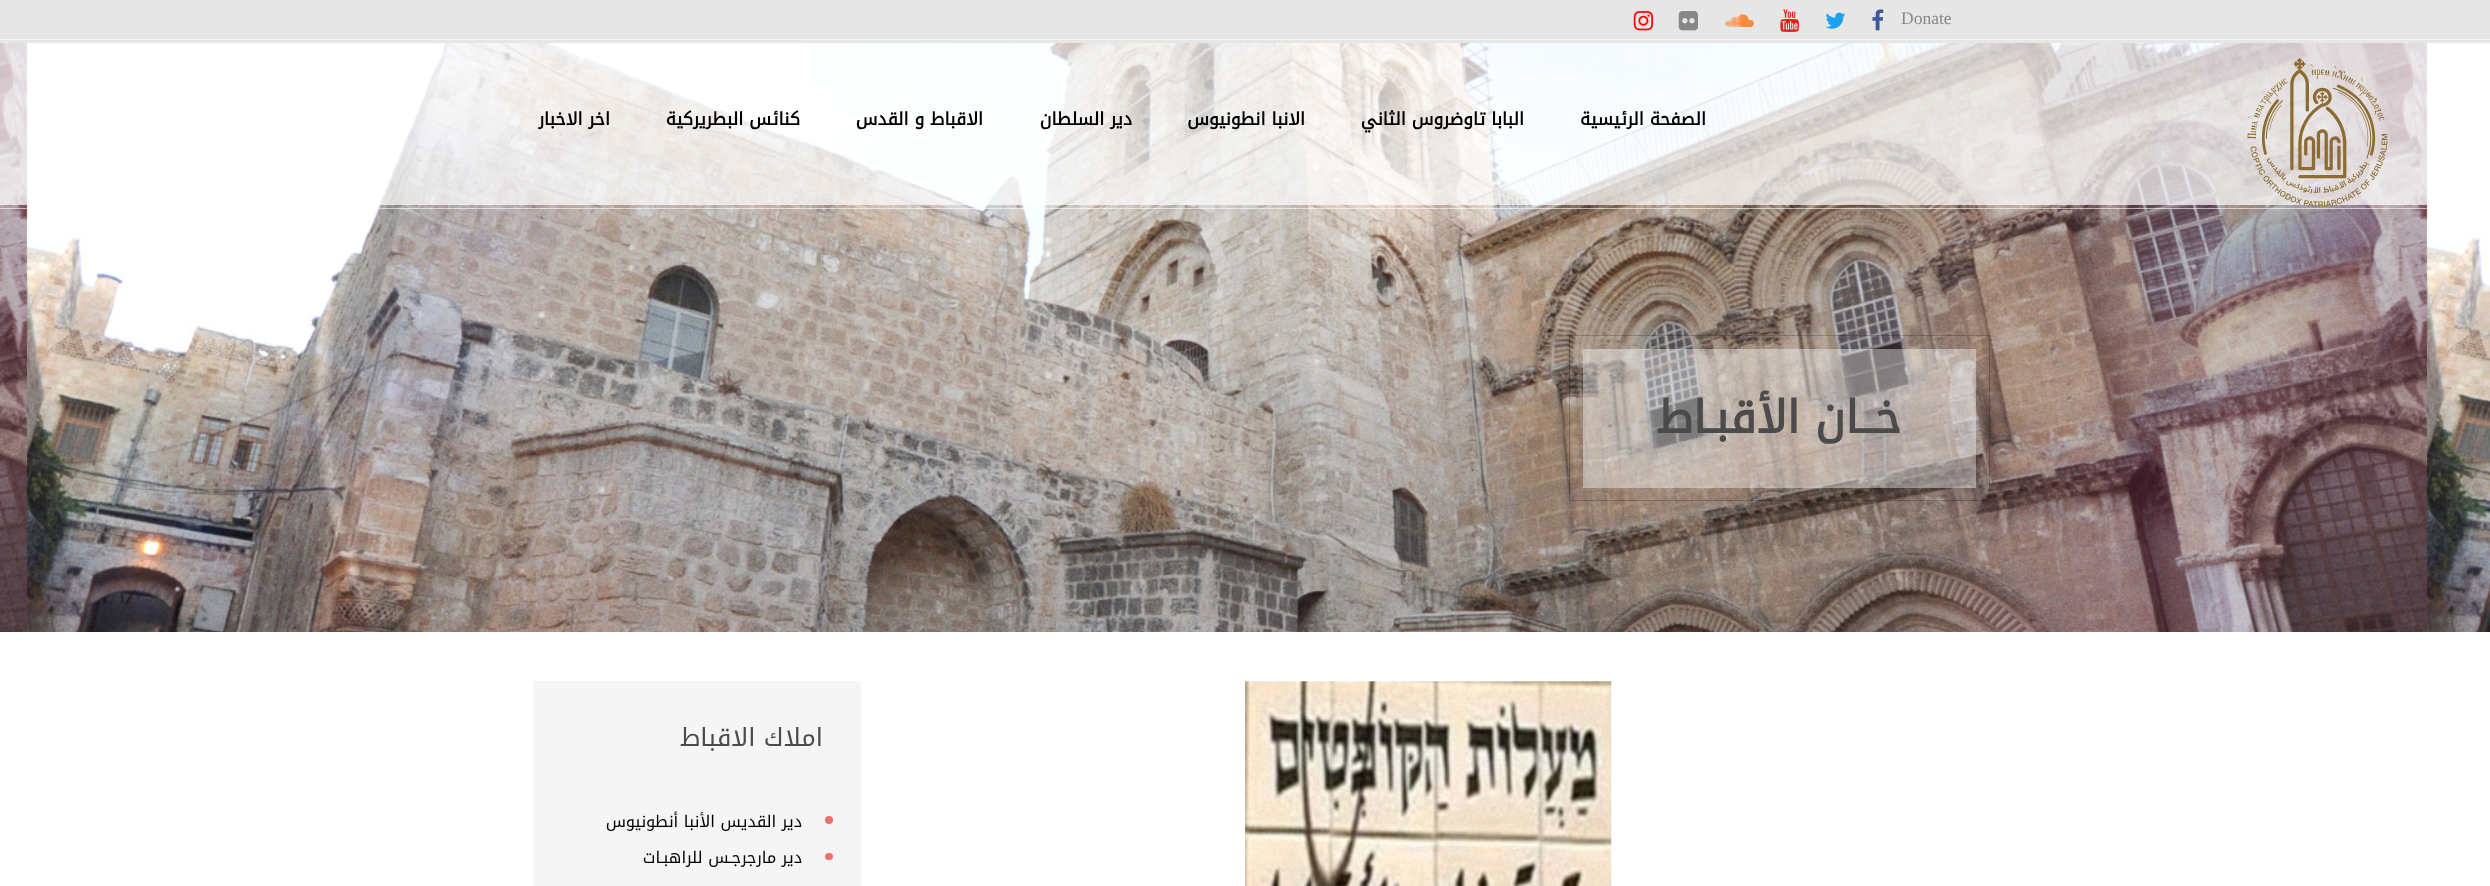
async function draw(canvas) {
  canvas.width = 2490
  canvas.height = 886
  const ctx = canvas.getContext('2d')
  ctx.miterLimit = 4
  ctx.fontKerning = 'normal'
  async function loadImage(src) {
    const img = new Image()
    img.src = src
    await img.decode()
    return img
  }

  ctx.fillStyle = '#fff'
  ctx.fillRect(0, 0, 2490, 886)
  ctx.drawImage(await loadImage('image0.png'), 0, 43, 2490, 589)
  ctx.fillStyle = '#e6e6e6'
  ctx.fillRect(0, 0, 2490, 43)
  ctx.font = '17.5px Liberation Serif'
  ctx.fillStyle = '#878787'
  ctx.fillText('Donate', 1901, 24)
  ctx.drawImage(await loadImage('image1.png'), 1872, 9, 12, 22)
  ctx.drawImage(await loadImage('image2.png'), 1825, 12, 21, 17)
  ctx.drawImage(await loadImage('image3.png'), 1780, 9, 19, 23)
  ctx.drawImage(await loadImage('image4.png'), 1725, 14, 29, 13)
  ctx.drawImage(await loadImage('image5.png'), 1678, 11, 20, 20)
  ctx.drawImage(await loadImage('image6.png'), 1633, 11, 21, 20)
  ctx.fillStyle = '#ffffffb3'
  ctx.fillRect(0, 43, 2428, 162)
  ctx.fillStyle = '#f5f5f5'
  ctx.fillRect(0, 39, 2490, 1)
  ctx.drawImage(await loadImage('image7.png'), 2247, 57, 141, 151)
  ctx.direction = 'rtl'
  ctx.font = 'bold 17.5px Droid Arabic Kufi'
  ctx.fillStyle = '#000'
  ctx.fillText('الصفحة الرئيسية', 1706, 125)
  ctx.fillText('البابا تاوضروس الثاني', 1524, 125)
  ctx.fillText('الانبا انطونيوس', 1305, 125)
  ctx.fillText('دير السلطان', 1132, 125)
  ctx.fillText('الاقباط و القدس', 983, 125)
  ctx.fillText('كنائس البطريركية', 800, 125)
  ctx.fillText('اخر الاخبار', 610, 125)
  ctx.fillStyle = '#ffffff99'
  ctx.fillRect(0, 208, 2428, 1)
  ctx.fillStyle = '#ffffff66'
  ctx.fillRect(1583, 349, 393, 139)
  ctx.strokeStyle = '#00000033'
  ctx.strokeRect(1569.5, 335.5, 420, 165)
  ctx.font = 'bold 45px Droid Arabic Kufi'
  ctx.fillStyle = '#4b4b4b'
  ctx.fillText('خــان الأقبـاط', 1901, 433)
  ctx.drawImage(await loadImage('image8.png'), 1245, 681, 367, 205)
  ctx.fillStyle = '#f6f5f5'
  ctx.fillRect(533, 681, 328, 205)
  ctx.font = '25px Droid Arabic Kufi'
  ctx.fillStyle = '#4b4b4b'
  ctx.fillText('املاك الاقباط', 823, 746)
  ctx.fillStyle = '#f46d6d'
  ctx.beginPath()
  ctx.arc(829, 820, 4, 0, 2 * Math.PI)
  ctx.fill()
  ctx.font = '16.25px Droid Arabic Kufi'
  ctx.fillStyle = '#000'
  ctx.fillText('دير القديس الأنبا أنطونيوس', 802, 827)
  ctx.fillStyle = '#f46d6d'
  ctx.beginPath()
  ctx.roundRect(825, 853, 8, 7, 3.5)
  ctx.fill()
  ctx.fillStyle = '#000'
  ctx.fillText('دير مارجرجـس للراهبـات', 802, 863)
}

draw(document.querySelector('canvas'))
